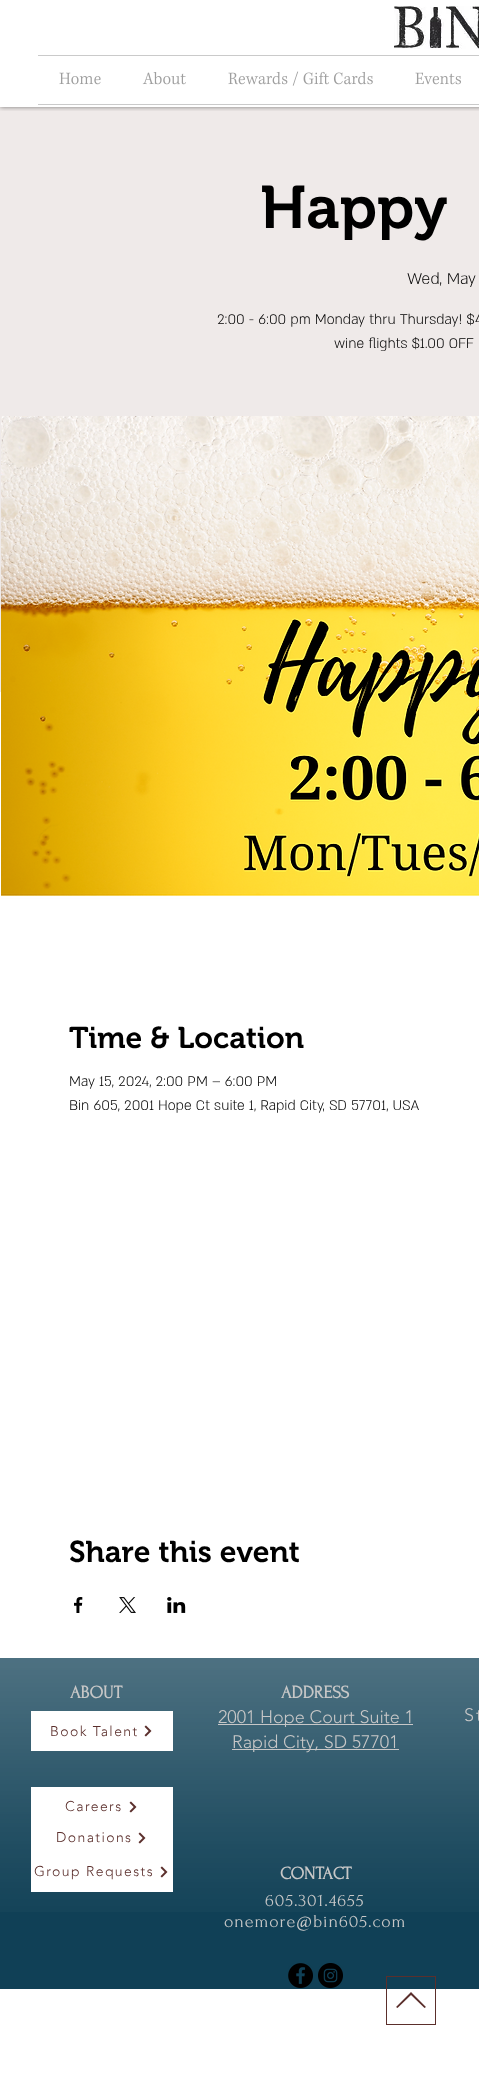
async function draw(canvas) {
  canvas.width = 479
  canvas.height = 2084
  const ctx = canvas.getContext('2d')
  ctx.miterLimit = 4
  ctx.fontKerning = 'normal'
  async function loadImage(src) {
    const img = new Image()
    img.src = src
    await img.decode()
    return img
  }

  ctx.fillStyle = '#fff'
  ctx.fillRect(0, 0, 479, 2084)
  ctx.fillStyle = '#efeae9'
  ctx.fillRect(0, 107, 479, 585)
  ctx.save()
  ctx.beginPath()
  ctx.rect(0, 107, 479, 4)
  ctx.clip()
  ctx.fillStyle = '#00000080'
  ctx.filter = 'blur(2.5px)'
  ctx.beginPath()
  ctx.rect(0, 0, 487, 107)
  ctx.fill()
  ctx.filter = 'none'
  ctx.restore()
  ctx.drawImage(await loadImage('image0.png'), 394, 6, 85, 43)
  ctx.fillStyle = '#cacaca'
  ctx.fillRect(38, 55, 441, 1)
  ctx.fillRect(38, 104, 441, 1)
  ctx.drawImage(await loadImage('image1.png'), 59, 72, 42, 13)
  ctx.drawImage(await loadImage('image2.png'), 142, 72, 44, 13)
  ctx.drawImage(await loadImage('image3.png'), 228, 71, 145, 15)
  ctx.drawImage(await loadImage('image4.png'), 415, 72, 46, 13)
  ctx.font = '600 60px "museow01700"'
  ctx.fillStyle = '#000'
  ctx.fillText('Happy', 260, 228)
  ctx.font = '300 18px "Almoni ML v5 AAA"'
  ctx.fillText('Wed, May', 407, 284)
  ctx.font = '300 16px "Almoni ML v5 AAA"'
  ctx.fillText('2:00 - 6:00 pm Monday thru Thursday! $4', 217, 324)
  ctx.fillText('wine flights $1.00 OFF', 334, 348)
  ctx.drawImage(await loadImage('image5.png'), 1, 416, 478, 552)
  ctx.font = '600 30px "museow01700"'
  ctx.fillText('Time & Location', 69, 1048)
  ctx.font = '300 16px "Almoni ML v5 AAA"'
  ctx.fillText('May 15, 2024, 2:00 PM – 6:00 PM', 69, 1086)
  ctx.fillText('Bin 605, 2001 Hope Ct suite 1, Rapid City, SD 57701, USA', 69, 1110)
  ctx.font = '600 30px "museow01700"'
  ctx.fillText('Share this event', 69, 1562)
  ctx.drawImage(await loadImage('image6.png'), 74, 1597, 9, 16)
  ctx.drawImage(await loadImage('image7.png'), 119, 1597, 17, 16)
  ctx.drawImage(await loadImage('image8.png'), 167, 1597, 19, 16)
  ctx.fillStyle = '#104056'
  ctx.fillRect(0, 1658, 479, 331)
  ctx.drawImage(await loadImage('image9.png'), 0, 1658, 479, 254)
  ctx.font = 'bold 18px Forum'
  ctx.fillStyle = '#c7c7c7'
  ctx.fillText('ABOUT', 70, 1698)
  ctx.fillText('ADDRESS', 281, 1698)
  ctx.fillStyle = '#fff'
  ctx.fillRect(31, 1711, 142, 40)
  ctx.letterSpacing = '1.4px'
  ctx.font = '300 14px "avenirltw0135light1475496"'
  ctx.fillStyle = '#5b2f2c'
  ctx.fillText('Book Talent', 50, 1736)
  ctx.drawImage(await loadImage('image10.png'), 144, 1725, 8, 12)
  ctx.fillStyle = '#c7c7c7'
  ctx.fillRect(218, 1724, 195, 1)
  ctx.letterSpacing = '0px'
  ctx.font = '300 18px "avenirltw0135light1475496"'
  ctx.fillText('2001 Hope Court Suite 1', 218, 1723)
  ctx.fillRect(232, 1749, 167, 1)
  ctx.fillText('Rapid City, SD 57701', 232, 1748)
  ctx.letterSpacing = '2px'
  ctx.fillText('St', 464, 1721)
  ctx.fillStyle = '#fff'
  ctx.fillRect(31, 1787, 142, 105)
  ctx.letterSpacing = '1.4px'
  ctx.font = '300 14px "avenirltw0135light1475496"'
  ctx.fillStyle = '#5b2f2c'
  ctx.fillText('Careers', 65, 1811)
  ctx.drawImage(await loadImage('image10.png'), 129, 1801, 8, 12)
  ctx.fillText('Donations', 56, 1842)
  ctx.drawImage(await loadImage('image10.png'), 138, 1832, 8, 12)
  ctx.fillText('Group Requests', 34, 1876)
  ctx.drawImage(await loadImage('image10.png'), 160, 1866, 8, 12)
  ctx.letterSpacing = '0px'
  ctx.font = 'bold 18px Forum'
  ctx.fillStyle = '#c7c7c7'
  ctx.fillText('CONTACT', 280, 1879)
  ctx.letterSpacing = '0.9px'
  ctx.font = '18px Forum'
  ctx.fillText('605.301.4655', 265, 1906)
  ctx.fillText('onemore@bin605.com', 224, 1927)
  ctx.drawImage(await loadImage('image11.png'), 288, 1963, 25, 25)
  ctx.drawImage(await loadImage('image12.png'), 318, 1963, 25, 25)
  ctx.strokeStyle = '#5b2f2c'
  ctx.strokeRect(386.5, 1976.5, 49, 48)
  ctx.fillStyle = '#5b2f2c'
  ctx.beginPath()
  ctx.moveTo(396, 2007)
  ctx.lineTo(397.5, 2008)
  ctx.lineTo(411, 1995)
  ctx.lineTo(424.5, 2008)
  ctx.lineTo(426, 2007)
  ctx.lineTo(411, 1992)
  ctx.closePath()
  ctx.fill()
}

draw(document.querySelector('canvas'))
